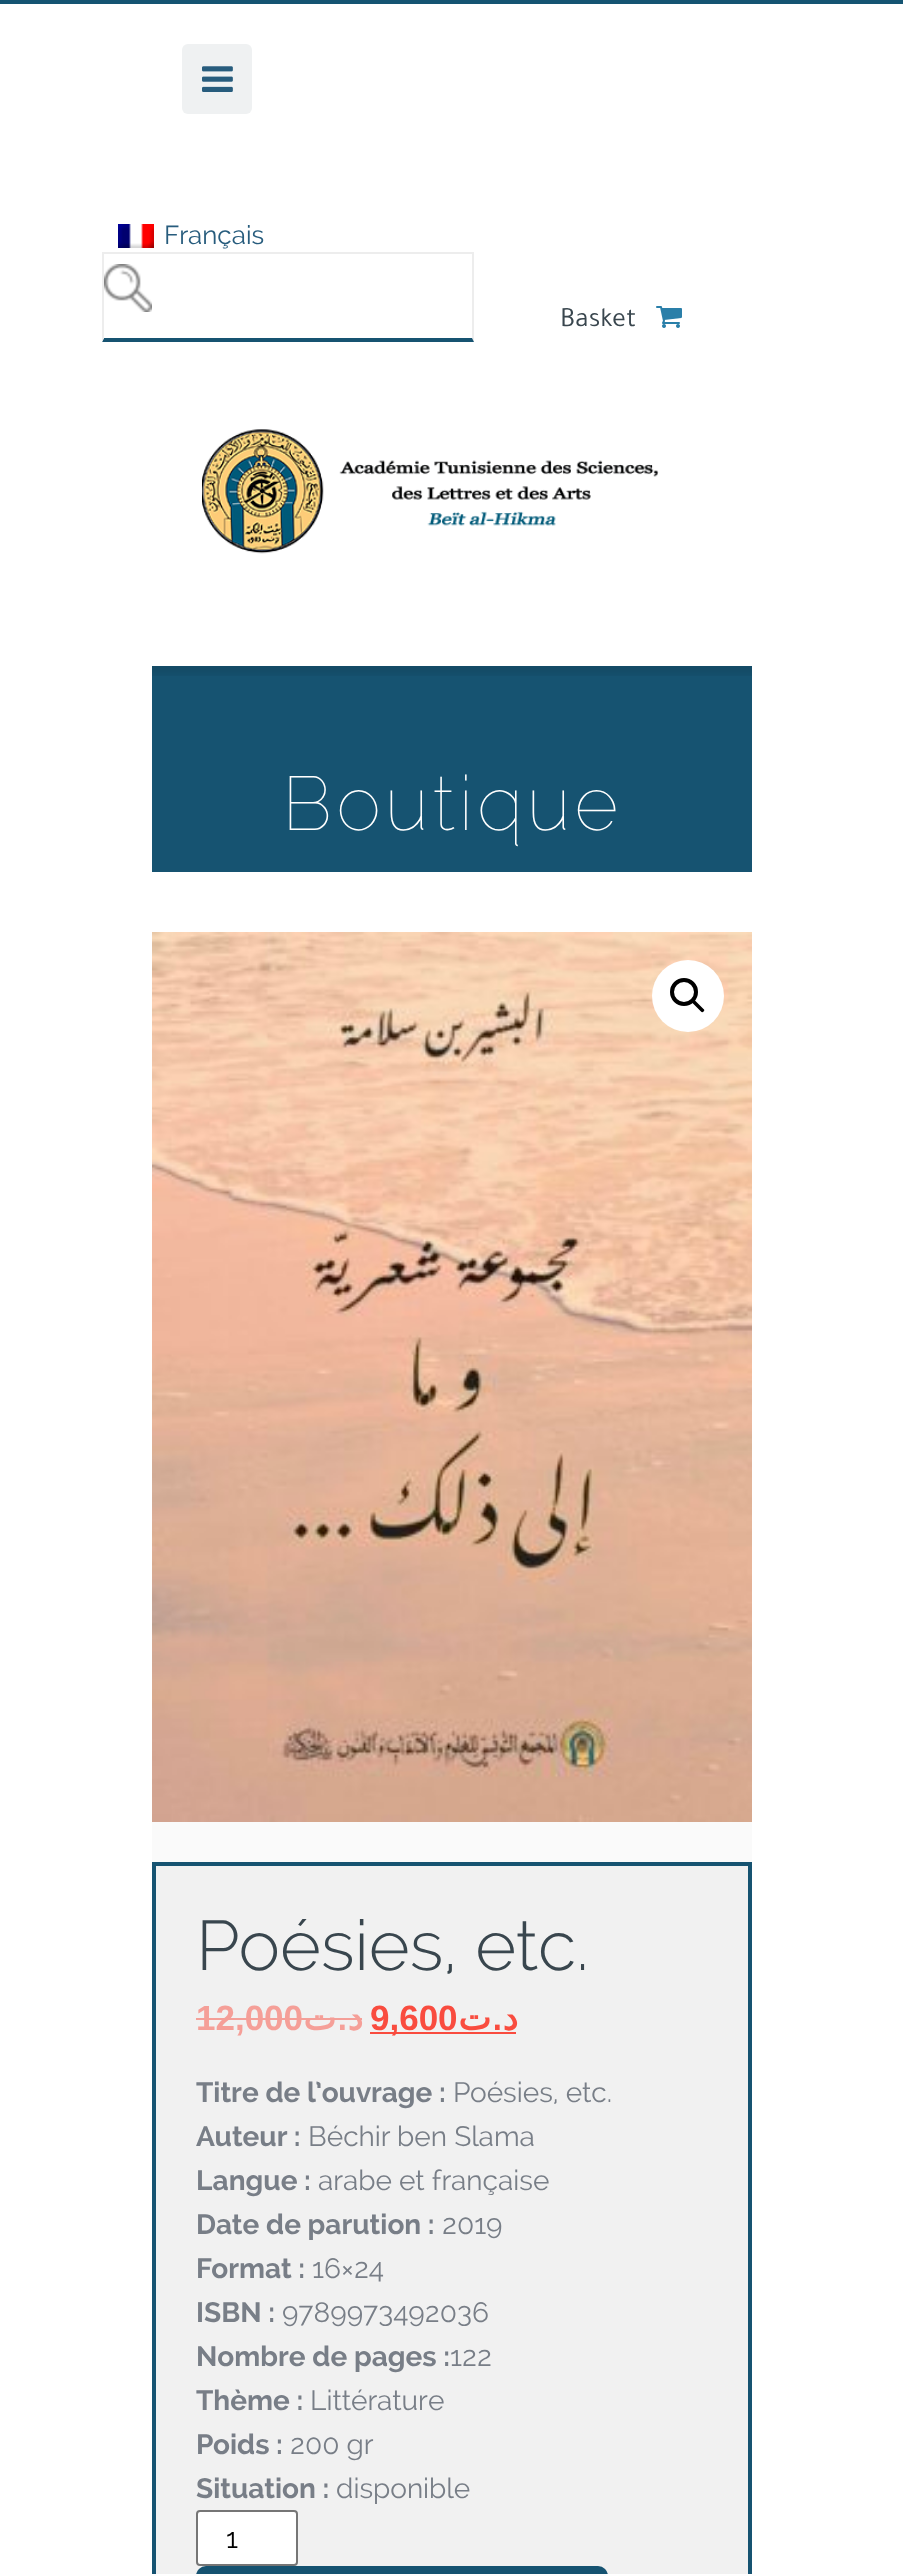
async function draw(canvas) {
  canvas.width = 903
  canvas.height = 2574
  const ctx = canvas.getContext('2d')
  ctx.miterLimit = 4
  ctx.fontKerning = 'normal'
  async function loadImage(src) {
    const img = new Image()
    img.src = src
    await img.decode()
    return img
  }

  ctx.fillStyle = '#fff'
  ctx.fillRect(0, 0, 903, 2574)
  ctx.fillStyle = '#155472'
  ctx.fillRect(0, 0, 903, 4)
  ctx.fillStyle = '#eff1f2'
  ctx.beginPath()
  ctx.roundRect(182, 44, 70, 70, 6)
  ctx.fill()
  ctx.drawImage(await loadImage('image0.png'), 202, 66, 31, 26)
  ctx.drawImage(await loadImage('image1.png'), 118, 224, 36, 24)
  ctx.font = '26px Raleway'
  ctx.fillStyle = '#275c7d'
  ctx.fillText('Français', 164, 244)
  ctx.fillStyle = '#ededed'
  ctx.fillRect(102, 252, 372, 2)
  ctx.beginPath()
  ctx.moveTo(474, 252)
  ctx.lineTo(474, 342)
  ctx.lineTo(472, 338)
  ctx.lineTo(472, 254)
  ctx.closePath()
  ctx.fill()
  ctx.fillStyle = '#165371'
  ctx.beginPath()
  ctx.moveTo(474, 342)
  ctx.lineTo(102, 342)
  ctx.lineTo(104, 338)
  ctx.lineTo(472, 338)
  ctx.closePath()
  ctx.fill()
  ctx.fillStyle = '#ededed'
  ctx.beginPath()
  ctx.moveTo(102, 342)
  ctx.lineTo(102, 252)
  ctx.lineTo(104, 254)
  ctx.lineTo(104, 338)
  ctx.closePath()
  ctx.fill()
  ctx.drawImage(await loadImage('image2.png'), 104, 264, 48, 48)
  ctx.font = '28px Tajawal'
  ctx.fillStyle = '#39464e'
  ctx.fillText('Basket', 560, 326)
  ctx.drawImage(await loadImage('image3.png'), 656, 306, 26, 22)
  ctx.drawImage(await loadImage('image4.png'), 202, 429, 457, 125)
  ctx.fillStyle = '#165371'
  ctx.fillRect(152, 666, 600, 206)
  ctx.drawImage(await loadImage('image5.png'), 152, 666, 600, 10)
  ctx.letterSpacing = '4px'
  ctx.font = '100 76px Raleway'
  ctx.fillStyle = '#fff'
  ctx.fillText('Boutique', 282, 830)
  ctx.fillStyle = '#fafafa'
  ctx.fillRect(152, 1822, 600, 40)
  ctx.drawImage(await loadImage('image6.png'), 152, 932, 600, 890)
  ctx.fillStyle = '#fff'
  ctx.beginPath()
  ctx.arc(688, 996, 36, 0, 2 * Math.PI)
  ctx.fill()
  ctx.beginPath()
  ctx.arc(684, 992, 12, 0, 2 * Math.PI)
  ctx.strokeStyle = '#000'
  ctx.lineWidth = 4
  ctx.stroke()
  ctx.fillStyle = '#000'
  ctx.beginPath()
  ctx.moveTo(692.5, 1000.5)
  ctx.bezierCurveTo(693, 999.5, 694.5, 999.5, 695, 1000.5)
  ctx.lineTo(703.5, 1009)
  ctx.bezierCurveTo(704.5, 1009.5, 704.5, 1011, 703.5, 1011.5)
  ctx.bezierCurveTo(703, 1012.5, 701.5, 1012.5, 701, 1011.5)
  ctx.lineTo(692.5, 1003)
  ctx.bezierCurveTo(691.5, 1002.5, 691.5, 1001, 692.5, 1000.5)
  ctx.closePath()
  ctx.fill()
  ctx.fillStyle = '#f1f1f1'
  ctx.beginPath()
  ctx.rect(154, 1864, 596, 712)
  ctx.fill()
  ctx.strokeStyle = '#165371'
  ctx.stroke()
  ctx.letterSpacing = '0px'
  ctx.font = '300 70px Raleway'
  ctx.fillStyle = '#39464e'
  ctx.fillText('Poésies, etc.', 196, 1970)
  ctx.font = 'bold 35px Liberation Sans'
  ctx.fillStyle = '#f59f98'
  ctx.fillText('12,000', 196, 2030)
  ctx.fillRect(304, 2018, 58, 2)
  ctx.fillRect(196, 2018, 108, 2)
  ctx.direction = 'rtl'
  ctx.font = 'bold 35px DejaVu Sans'
  ctx.fillText('د.ت', 363, 2030)
  ctx.fillStyle = '#f94c3f'
  ctx.fillRect(370, 2032, 146, 2)
  ctx.direction = 'ltr'
  ctx.font = 'bold 35px Liberation Sans'
  ctx.fillText('9,600', 370, 2030)
  ctx.direction = 'rtl'
  ctx.font = 'bold 35px DejaVu Sans'
  ctx.fillText('د.ت', 518, 2030)
  ctx.direction = 'ltr'
  ctx.font = 'bold 28px Raleway'
  ctx.fillStyle = '#787e87'
  ctx.fillText('Titre de l’ouvrage :', 196, 2102)
  ctx.font = '28px Raleway'
  ctx.fillText('Poésies, etc.', 453, 2102)
  ctx.font = 'bold 28px Raleway'
  ctx.fillText('Auteur :', 196, 2146)
  ctx.font = '28px Raleway'
  ctx.fillText('Béchir ben Slama', 308, 2146)
  ctx.font = 'bold 28px Raleway'
  ctx.fillText('Langue :', 196, 2190)
  ctx.font = '28px Raleway'
  ctx.fillText('arabe et française', 318, 2190)
  ctx.font = 'bold 28px Raleway'
  ctx.fillText('Date de parution :', 196, 2234)
  ctx.font = '28px Raleway'
  ctx.fillText('2019', 442, 2234)
  ctx.font = 'bold 28px Raleway'
  ctx.fillText('Format :', 196, 2278)
  ctx.font = '28px Raleway'
  ctx.fillText('16×24', 312, 2278)
  ctx.font = 'bold 28px Raleway'
  ctx.fillText('ISBN :', 196, 2322)
  ctx.font = '28px Raleway'
  ctx.fillText('9789973492036', 282, 2322)
  ctx.font = 'bold 28px Raleway'
  ctx.fillText('Nombre de pages :', 196, 2366)
  ctx.font = '28px Raleway'
  ctx.fillText('122', 450, 2366)
  ctx.font = 'bold 28px Raleway'
  ctx.fillText('Thème :', 196, 2410)
  ctx.font = '28px Raleway'
  ctx.fillText('Littérature', 310, 2410)
  ctx.font = 'bold 28px Raleway'
  ctx.fillText('Poids :', 196, 2454)
  ctx.font = '28px Raleway'
  ctx.fillText('200 gr', 290, 2454)
  ctx.font = 'bold 28px Raleway'
  ctx.fillText('Situation :', 196, 2498)
  ctx.font = '28px Raleway'
  ctx.fillText('disponible', 336, 2498)
  ctx.fillStyle = '#fff'
  ctx.beginPath()
  ctx.roundRect(197, 2511, 100, 54, 3)
  ctx.fill()
  ctx.strokeStyle = '#767676'
  ctx.lineWidth = 2
  ctx.stroke()
  ctx.fillStyle = '#000'
  ctx.fillText('1', 226, 2548)
  ctx.fillStyle = '#165371'
  ctx.beginPath()
  ctx.roundRect(196, 2566, 412, 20, 12)
  ctx.fill()
}

draw(document.querySelector('canvas'))
